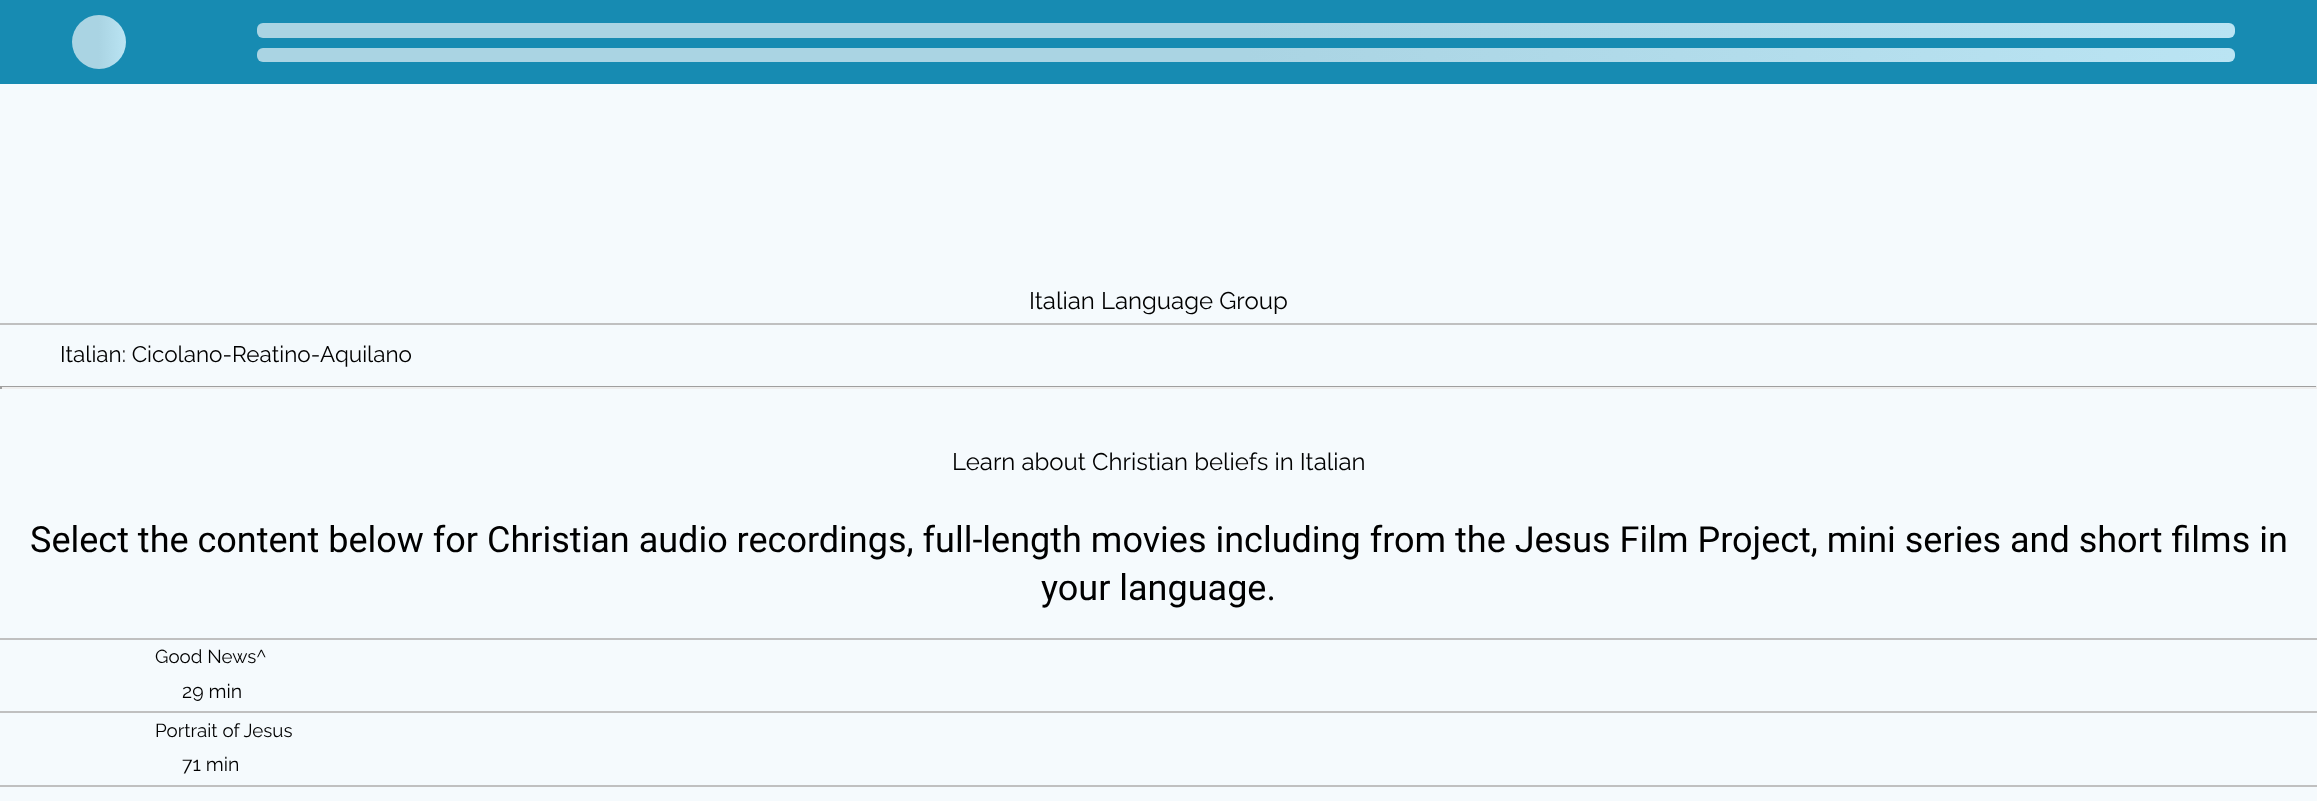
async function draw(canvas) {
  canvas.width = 2317
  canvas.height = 801
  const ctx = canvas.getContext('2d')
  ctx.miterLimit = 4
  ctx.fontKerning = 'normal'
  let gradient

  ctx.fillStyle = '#f5fafd'
  ctx.fillRect(0, 0, 2317, 801)
  ctx.fillStyle = '#178bb2'
  ctx.fillRect(0, 0, 2317, 84)
  gradient = ctx.createLinearGradient(72, 42, 180, 42)
  gradient.addColorStop(0.25, '#aad4e3')
  gradient.addColorStop(0.5, '#bae4f3')
  gradient.addColorStop(0.75, '#aad4e3')
  ctx.fillStyle = gradient
  ctx.beginPath()
  ctx.arc(99, 42, 27, 0, 2 * Math.PI)
  ctx.fill()
  gradient = ctx.createLinearGradient(257, 30, 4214, 30)
  gradient.addColorStop(0.25, '#aad4e3')
  gradient.addColorStop(0.5, '#bae4f3')
  gradient.addColorStop(0.75, '#aad4e3')
  ctx.fillStyle = gradient
  ctx.beginPath()
  ctx.roundRect(257, 23, 1978, 15, 6)
  ctx.fill()
  gradient = ctx.createLinearGradient(257, 55, 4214, 55)
  gradient.addColorStop(0.25, '#aad4e3')
  gradient.addColorStop(0.5, '#bae4f3')
  gradient.addColorStop(0.75, '#aad4e3')
  ctx.fillStyle = gradient
  ctx.beginPath()
  ctx.roundRect(257, 48, 1978, 14, 6)
  ctx.fill()
  ctx.font = '24px Raleway'
  ctx.fillStyle = '#000'
  ctx.fillText('Italian Language Group', 1029, 309)
  ctx.fillStyle = '#c0c0c0'
  ctx.fillRect(0, 323, 2317, 2)
  ctx.font = '22.5px Raleway'
  ctx.fillStyle = '#000'
  ctx.fillText('Italian: Cicolano-Reatino-Aquilano', 60, 362)
  ctx.fillStyle = '#9f9f9f'
  ctx.fillRect(0, 386, 2317, 1)
  ctx.fillStyle = '#eee'
  ctx.fillRect(2316, 386, 1, 3)
  ctx.fillRect(0, 387, 2317, 2)
  ctx.fillStyle = '#9f9f9f'
  ctx.fillRect(0, 386, 2, 3)
  ctx.font = '24px Raleway'
  ctx.fillStyle = '#000'
  ctx.fillText('Learn about Christian beliefs in Italian', 952, 470)
  ctx.font = '36px Roboto'
  ctx.fillText('Select the content below for Christian audio recordings, full-length movies including from the Jesus Film Project, mini series and short films in', 30, 552)
  ctx.fillText('your language.', 1041, 600)
  ctx.fillStyle = '#c0c0c0'
  ctx.fillRect(0, 638, 2317, 2)
  ctx.font = '18.75px Raleway'
  ctx.fillStyle = '#000'
  ctx.fillText('Good News^', 155, 663)
  ctx.font = '19.5px Raleway'
  ctx.fillText('29 min', 182, 698)
  ctx.fillStyle = '#c0c0c0'
  ctx.fillRect(0, 711, 2317, 2)
  ctx.font = '18.75px Raleway'
  ctx.fillStyle = '#000'
  ctx.fillText('Portrait of Jesus', 155, 737)
  ctx.font = '19.5px Raleway'
  ctx.fillText('71 min', 182, 771)
  ctx.fillStyle = '#c0c0c0'
  ctx.fillRect(0, 785, 2317, 2)
}

draw(document.querySelector('canvas'))
